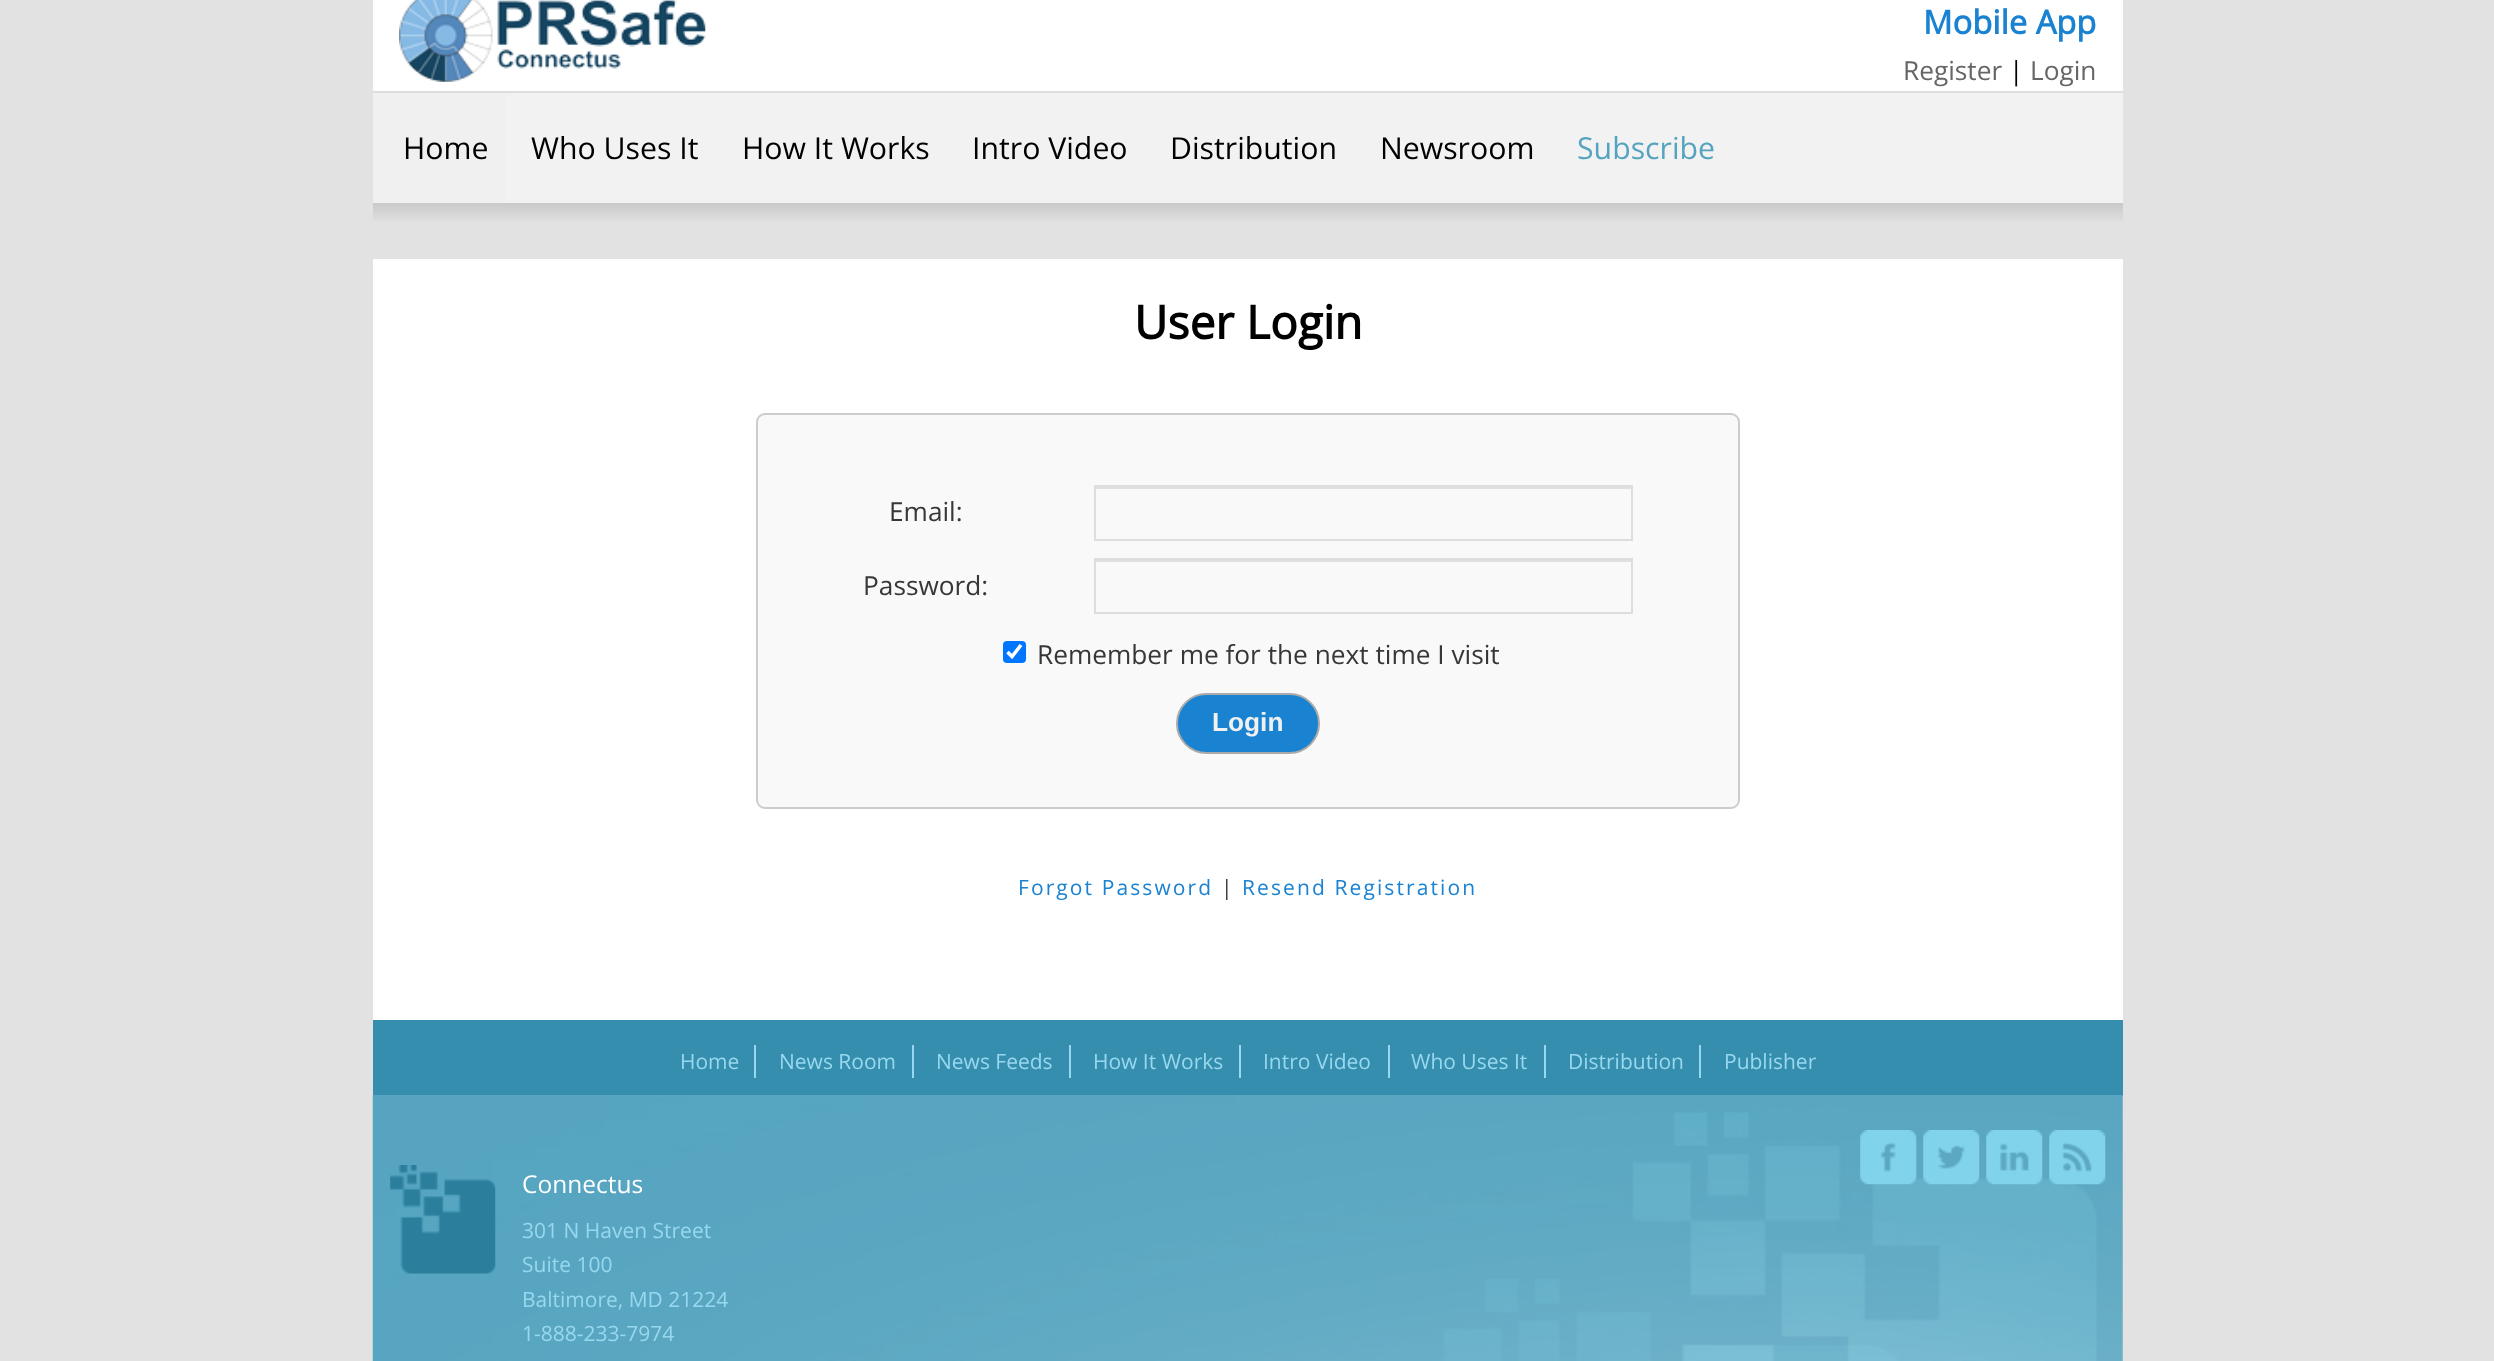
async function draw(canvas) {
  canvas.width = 2494
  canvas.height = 1361
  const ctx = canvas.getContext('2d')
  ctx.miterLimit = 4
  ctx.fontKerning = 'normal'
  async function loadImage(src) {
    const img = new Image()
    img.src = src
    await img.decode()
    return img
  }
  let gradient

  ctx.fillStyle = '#e2e2e2'
  ctx.fillRect(0, 0, 2494, 1361)
  ctx.fillStyle = '#fff'
  ctx.fillRect(373, 0, 1750, 91)
  ctx.drawImage(await loadImage('image0.png'), 399, 0, 307, 82)
  ctx.font = 'bold 32.75px Open Sans'
  ctx.fillStyle = '#1982d1'
  ctx.fillText('Mobile App', 1923, 34)
  ctx.font = '26.25px Open Sans'
  ctx.fillStyle = '#666'
  ctx.fillText('Register', 1903, 80)
  ctx.fillStyle = '#000'
  ctx.fillText('|', 2009, 80)
  ctx.fillStyle = '#666'
  ctx.fillText('Login', 2030, 80)
  ctx.fillStyle = '#f2f2f2'
  ctx.fillRect(506, 93, 1617, 110)
  ctx.fillStyle = '#ddd'
  ctx.fillRect(373, 91, 1750, 2)
  ctx.fillStyle = '#f0f0f0'
  ctx.fillRect(373, 93, 133, 110)
  ctx.font = '30.25px Open Sans'
  ctx.fillStyle = '#000'
  ctx.fillText('Home', 403, 159)
  ctx.fillText('Who Uses It', 531, 159)
  ctx.fillText('How It Works', 742, 159)
  ctx.fillText('Intro Video', 972, 159)
  ctx.fillText('Distribution', 1170, 159)
  ctx.fillText('Newsroom', 1380, 159)
  ctx.fillStyle = '#55a4bf'
  ctx.fillText('Subscribe', 1577, 159)
  gradient = ctx.createLinearGradient(1248, 203, 1248, 224)
  gradient.addColorStop(0, '#c9c9c9')
  gradient.addColorStop(1, '#e2e2e2')
  ctx.fillStyle = gradient
  ctx.fillRect(373, 203, 1750, 19)
  ctx.fillStyle = '#fff'
  ctx.fillRect(373, 259, 1750, 761)
  ctx.font = 'bold 46px Open Sans'
  ctx.fillStyle = '#000'
  ctx.fillText('User Login', 1134, 339)
  ctx.fillStyle = '#f9f9f9'
  ctx.beginPath()
  ctx.roundRect(757, 414, 982, 394, 8)
  ctx.fill()
  ctx.strokeStyle = '#ccc'
  ctx.lineWidth = 2
  ctx.stroke()
  ctx.font = '26.25px Open Sans'
  ctx.fillStyle = '#373737'
  ctx.fillText('Email:', 889, 521)
  ctx.fillStyle = '#e0e0e0'
  ctx.fillRect(1096, 487, 535, 2)
  ctx.strokeStyle = '#ddd'
  ctx.strokeRect(1095, 486, 537, 54)
  ctx.fillStyle = '#373737'
  ctx.fillText('Password:', 863, 595)
  ctx.fillStyle = '#e0e0e0'
  ctx.fillRect(1096, 560, 535, 2)
  ctx.strokeRect(1095, 559, 537, 54)
  ctx.fillStyle = '#0075ff'
  ctx.beginPath()
  ctx.roundRect(1003, 641, 23, 22, 4)
  ctx.fill()
  ctx.beginPath()
  ctx.moveTo(1007.5, 652)
  ctx.lineTo(1012, 656.5)
  ctx.lineTo(1021, 645)
  ctx.strokeStyle = '#fff'
  ctx.lineWidth = 3.6
  ctx.stroke()
  ctx.fillStyle = '#373737'
  ctx.fillText('Remember me for the next time I visit', 1037, 664)
  ctx.fillStyle = '#1982d1'
  ctx.beginPath()
  ctx.roundRect(1177, 694, 142, 59, 29.5)
  ctx.fill()
  ctx.strokeStyle = '#aaa'
  ctx.lineWidth = 2
  ctx.stroke()
  ctx.font = 'bold 26.25px Liberation Sans'
  ctx.fillStyle = '#f0f0f0'
  ctx.fillText('Login', 1212, 731)
  ctx.letterSpacing = '2.1px'
  ctx.font = '21px Open Sans'
  ctx.fillStyle = '#1982d1'
  ctx.fillText('Forgot Password', 1018, 895)
  ctx.fillStyle = '#373737'
  ctx.fillText('|', 1221, 895)
  ctx.fillStyle = '#1982d1'
  ctx.fillText('Resend Registration', 1242, 895)
  ctx.fillStyle = '#358ead'
  ctx.fillRect(373, 1020, 1750, 76)
  ctx.fillStyle = '#97d8ee'
  ctx.fillRect(754, 1045, 2, 33)
  ctx.letterSpacing = '0px'
  ctx.fillText('Home', 680, 1069)
  ctx.fillRect(912, 1045, 2, 33)
  ctx.fillText('News Room', 779, 1069)
  ctx.fillRect(1069, 1045, 2, 33)
  ctx.fillText('News Feeds', 936, 1069)
  ctx.fillRect(1239, 1045, 2, 33)
  ctx.fillText('How It Works', 1093, 1069)
  ctx.fillRect(1388, 1045, 2, 33)
  ctx.fillText('Intro Video', 1263, 1069)
  ctx.fillRect(1544, 1045, 2, 33)
  ctx.fillText('Who Uses It', 1411, 1069)
  ctx.fillRect(1699, 1045, 2, 33)
  ctx.fillText('Distribution', 1568, 1069)
  ctx.fillText('Publisher', 1724, 1069)
  ctx.drawImage(await loadImage('image1.png'), 372, 1095, 1751, 266)
  ctx.drawImage(await loadImage('image2.png'), 1860, 1130, 57, 55)
  ctx.drawImage(await loadImage('image3.png'), 1923, 1130, 57, 55)
  ctx.drawImage(await loadImage('image4.png'), 1986, 1130, 57, 55)
  ctx.drawImage(await loadImage('image5.png'), 2049, 1130, 57, 55)
  ctx.drawImage(await loadImage('image6.png'), 390, 1165, 106, 109)
  ctx.font = '24.5px Open Sans'
  ctx.fillStyle = '#fff'
  ctx.fillText('Connectus', 522, 1193)
  ctx.font = '21px Open Sans'
  ctx.fillStyle = '#97d8ee'
  ctx.fillText('301 N Haven Street', 522, 1238)
  ctx.fillText('Suite 100', 522, 1272)
  ctx.fillText('Baltimore, MD 21224', 522, 1307)
  ctx.fillText('1-888-233-7974', 522, 1341)
}

draw(document.querySelector('canvas'))
